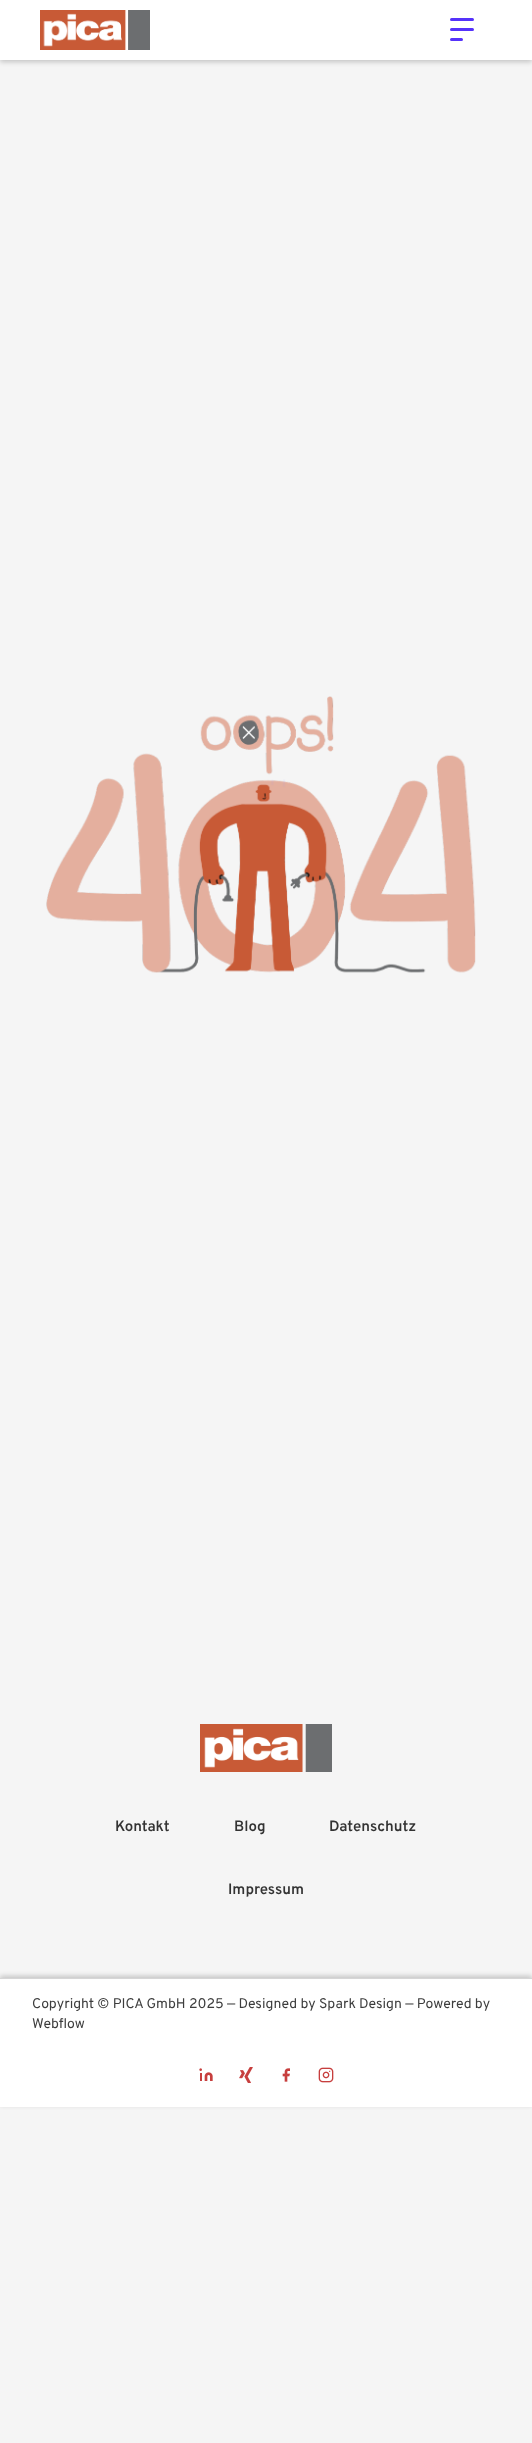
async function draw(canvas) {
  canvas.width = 532
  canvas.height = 2443
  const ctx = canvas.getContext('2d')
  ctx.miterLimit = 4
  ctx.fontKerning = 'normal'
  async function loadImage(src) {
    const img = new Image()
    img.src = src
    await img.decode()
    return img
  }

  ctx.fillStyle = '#f5f5f5'
  ctx.fillRect(0, 0, 532, 2443)
  ctx.fillStyle = '#00000033'
  ctx.filter = 'blur(2.5px)'
  ctx.beginPath()
  ctx.rect(0, 2, 532, 60)
  ctx.fill()
  ctx.filter = 'none'
  ctx.fillStyle = '#fff'
  ctx.fillRect(0, 0, 532, 60)
  ctx.drawImage(await loadImage('image0.png'), 40, 10, 110, 40)
  ctx.fillStyle = '#5532fa'
  ctx.beginPath()
  ctx.roundRect(450, 18, 24, 3, 1.5)
  ctx.fill()
  ctx.beginPath()
  ctx.roundRect(450, 28, 24, 3, 1.5)
  ctx.fill()
  ctx.beginPath()
  ctx.roundRect(450, 38, 13, 3, 1.5)
  ctx.fill()
  ctx.drawImage(await loadImage('image1.png'), 46, 696, 430, 277)
  ctx.drawImage(await loadImage('image2.png'), 200, 1724, 132, 48)
  ctx.font = '600 15px Overpass'
  ctx.fillStyle = '#333'
  ctx.fillText('Kontakt', 115, 1831)
  ctx.fillText('Blog', 234, 1831)
  ctx.fillText('Datenschutz', 329, 1831)
  ctx.fillText('Impressum', 228, 1894)
  ctx.fillStyle = '#00000033'
  ctx.filter = 'blur(2.5px)'
  ctx.beginPath()
  ctx.rect(0, 1976, 532, 129)
  ctx.fill()
  ctx.filter = 'none'
  ctx.fillStyle = '#fff'
  ctx.fillRect(0, 1979, 532, 128)
  ctx.fillStyle = '#d6d6d6'
  ctx.fillRect(0, 1978, 532, 1)
  ctx.font = '14px Overpass'
  ctx.fillStyle = '#3d3d3d'
  ctx.fillText('Copyright © PICA GmbH 2025 — Designed by Spark Design — Powered by', 32, 2008)
  ctx.fillText('Webflow', 32, 2028)
  ctx.drawImage(await loadImage('image3.png'), 199, 2068, 14, 13)
  ctx.drawImage(await loadImage('image4.png'), 239, 2067, 14, 16)
  ctx.drawImage(await loadImage('image5.png'), 282, 2068, 8, 14)
  ctx.drawImage(await loadImage('image6.png'), 318, 2067, 16, 16)
}

draw(document.querySelector('canvas'))
